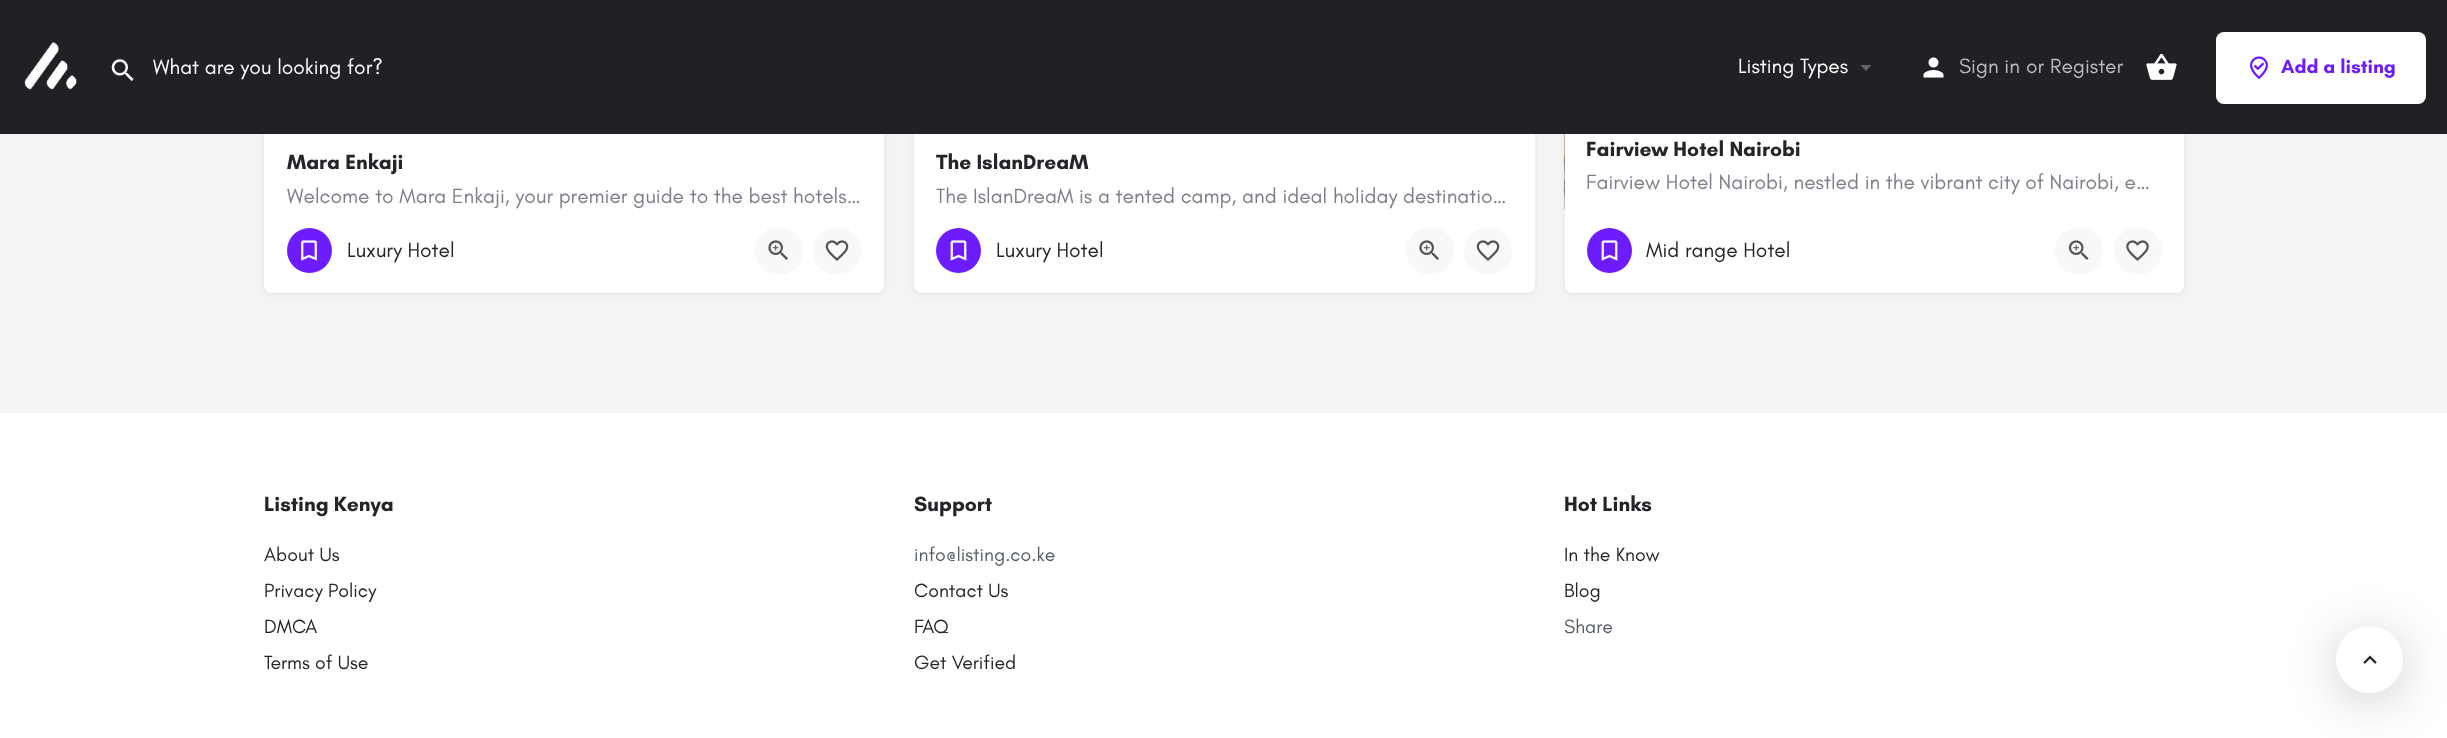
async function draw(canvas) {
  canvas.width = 2447
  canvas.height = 738
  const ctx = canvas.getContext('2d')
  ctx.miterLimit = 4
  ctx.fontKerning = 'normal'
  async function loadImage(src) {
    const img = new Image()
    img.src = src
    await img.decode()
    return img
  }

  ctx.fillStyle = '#f4f4f4'
  ctx.fillRect(0, 0, 2447, 738)
  ctx.fillStyle = '#00000012'
  ctx.filter = 'blur(3px)'
  ctx.beginPath()
  ctx.roundRect(264, -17, 620, 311, 8)
  ctx.fill()
  ctx.filter = 'none'
  ctx.filter = 'blur(3px)'
  ctx.beginPath()
  ctx.roundRect(914, -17, 621, 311, 8)
  ctx.fill()
  ctx.filter = 'none'
  ctx.filter = 'blur(3px)'
  ctx.beginPath()
  ctx.roundRect(1565, -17, 619, 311, 8)
  ctx.fill()
  ctx.filter = 'none'
  ctx.fillStyle = '#202125'
  ctx.fillRect(0, 0, 2447, 134)
  ctx.drawImage(await loadImage('image0.png'), 24, 42, 53, 48)
  ctx.drawImage(await loadImage('image1.png'), 111, 59, 23, 22)
  ctx.font = '21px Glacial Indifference'
  ctx.fillStyle = '#fff'
  ctx.fillText('What are you looking for?', 153, 74)
  ctx.fillText('Listing Types', 1738, 73)
  ctx.fillStyle = '#636466'
  ctx.beginPath()
  ctx.moveTo(1860.5, 65)
  ctx.lineTo(1871.5, 65)
  ctx.lineTo(1866, 71)
  ctx.closePath()
  ctx.fill()
  ctx.drawImage(await loadImage('image2.png'), 1923, 57, 21, 21)
  ctx.fillStyle = '#bcbcbe'
  ctx.fillText('Sign in', 1959, 73)
  ctx.fillText('or', 2026, 73)
  ctx.fillText('Register', 2050, 73)
  ctx.drawImage(await loadImage('image3.png'), 2146, 53, 31, 27)
  ctx.fillStyle = '#fff'
  ctx.beginPath()
  ctx.roundRect(2216, 32, 210, 72, 8)
  ctx.fill()
  ctx.drawImage(await loadImage('image4.png'), 2250, 56, 18, 24)
  ctx.font = 'bold 19.5px Glacial Indifference'
  ctx.fillStyle = '#6c1cff'
  ctx.fillText('Add a listing', 2281, 73)
  ctx.fillStyle = '#fff'
  ctx.fillRect(264, 134, 620, 76)
  ctx.font = 'bold 21px Glacial Indifference'
  ctx.fillStyle = '#242429'
  ctx.fillText('Mara Enkaji', 287, 169)
  ctx.font = '21px Glacial Indifference'
  ctx.fillStyle = '#7e7e89'
  ctx.fillText('Welcome to Mara Enkaji, your premier guide to the best hotels…', 287, 203)
  ctx.fillStyle = '#fff'
  ctx.beginPath()
  ctx.roundRect(264, 210, 620, 83, [0, 0, 8, 8])
  ctx.fill()
  ctx.fillStyle = '#6c1cff'
  ctx.beginPath()
  ctx.arc(309.5, 250.5, 22.5, 0, 2 * Math.PI)
  ctx.fill()
  ctx.drawImage(await loadImage('image5.png'), 301, 240, 16, 21)
  ctx.fillStyle = '#242429'
  ctx.fillText('Luxury Hotel', 347, 257)
  ctx.fillStyle = '#f8f8f8'
  ctx.beginPath()
  ctx.arc(779, 251, 24, 0, 2 * Math.PI)
  ctx.fill()
  ctx.drawImage(await loadImage('image6.png'), 768, 240, 20, 20)
  ctx.beginPath()
  ctx.arc(837, 251, 24, 0, 2 * Math.PI)
  ctx.fill()
  ctx.drawImage(await loadImage('image7.png'), 825, 240, 24, 21)
  ctx.fillStyle = '#fff'
  ctx.fillRect(914, 134, 621, 76)
  ctx.font = 'bold 21px Glacial Indifference'
  ctx.fillStyle = '#242429'
  ctx.fillText('The IslanDreaM', 936, 169)
  ctx.font = '21px Glacial Indifference'
  ctx.fillStyle = '#7e7e89'
  ctx.fillText('The IslanDreaM is a tented camp, and ideal holiday destinatio…', 936, 203)
  ctx.fillStyle = '#fff'
  ctx.beginPath()
  ctx.roundRect(914, 210, 621, 83, [0, 0, 8, 8])
  ctx.fill()
  ctx.fillStyle = '#6c1cff'
  ctx.beginPath()
  ctx.arc(958.5, 250.5, 22.5, 0, 2 * Math.PI)
  ctx.fill()
  ctx.drawImage(await loadImage('image8.png'), 950, 240, 17, 21)
  ctx.fillStyle = '#242429'
  ctx.fillText('Luxury Hotel', 996, 257)
  ctx.fillStyle = '#f8f8f8'
  ctx.beginPath()
  ctx.arc(1430, 251, 24, 0, 2 * Math.PI)
  ctx.fill()
  ctx.drawImage(await loadImage('image6.png'), 1419, 240, 20, 20)
  ctx.beginPath()
  ctx.arc(1488, 251, 24, 0, 2 * Math.PI)
  ctx.fill()
  ctx.drawImage(await loadImage('image7.png'), 1476, 240, 24, 21)
  ctx.drawImage(await loadImage('image9.png'), 1564, 134, 1, 76)
  ctx.fillStyle = '#fff'
  ctx.fillRect(1565, 134, 619, 76)
  ctx.font = 'bold 21px Glacial Indifference'
  ctx.fillStyle = '#242429'
  ctx.fillText('Fairview Hotel Nairobi', 1586, 156)
  ctx.font = '21px Glacial Indifference'
  ctx.fillStyle = '#7e7e89'
  ctx.fillText('Fairview Hotel Nairobi, nestled in the vibrant city of Nairobi, e…', 1586, 189)
  ctx.fillStyle = '#fff'
  ctx.beginPath()
  ctx.roundRect(1565, 210, 619, 83, [0, 0, 8, 8])
  ctx.fill()
  ctx.fillStyle = '#6c1cff'
  ctx.beginPath()
  ctx.arc(1609.5, 250.5, 22.5, 0, 2 * Math.PI)
  ctx.fill()
  ctx.drawImage(await loadImage('image8.png'), 1601, 240, 17, 21)
  ctx.fillStyle = '#242429'
  ctx.fillText('Mid range Hotel', 1646, 257)
  ctx.fillStyle = '#f8f8f8'
  ctx.beginPath()
  ctx.arc(2079, 251, 24, 0, 2 * Math.PI)
  ctx.fill()
  ctx.drawImage(await loadImage('image10.png'), 2068, 240, 21, 20)
  ctx.beginPath()
  ctx.arc(2138, 251, 24, 0, 2 * Math.PI)
  ctx.fill()
  ctx.drawImage(await loadImage('image11.png'), 2126, 240, 23, 21)
  ctx.fillStyle = '#fff'
  ctx.fillRect(0, 413, 2447, 325)
  ctx.font = 'bold 21px Glacial Indifference'
  ctx.fillStyle = '#242429'
  ctx.fillText('Listing Kenya', 264, 511)
  ctx.font = '19.5px Glacial Indifference'
  ctx.fillText('About Us', 264, 561)
  ctx.fillText('Privacy Policy', 264, 597)
  ctx.fillText('DMCA', 264, 633)
  ctx.fillText('Terms of Use', 264, 669)
  ctx.font = 'bold 21px Glacial Indifference'
  ctx.fillText('Support', 914, 511)
  ctx.font = '19.5px Glacial Indifference'
  ctx.fillStyle = '#565d62'
  ctx.fillText('info@listing.co.ke', 914, 561)
  ctx.fillStyle = '#242429'
  ctx.fillText('Contact Us', 914, 597)
  ctx.fillText('FAQ', 914, 633)
  ctx.fillText('Get Verified', 914, 669)
  ctx.font = 'bold 21px Glacial Indifference'
  ctx.fillText('Hot Links', 1564, 511)
  ctx.font = '19.5px Glacial Indifference'
  ctx.fillText('In the Know', 1564, 561)
  ctx.fillText('Blog', 1564, 597)
  ctx.fillStyle = '#565d62'
  ctx.fillText('Share', 1564, 633)
  ctx.fillStyle = '#00000033'
  ctx.filter = 'blur(25px)'
  ctx.beginPath()
  ctx.roundRect(2336, 633, 67, 68, 33.5)
  ctx.fill()
  ctx.filter = 'none'
  ctx.fillStyle = '#fff'
  ctx.beginPath()
  ctx.arc(2369.5, 659.5, 33.5, 0, 2 * Math.PI)
  ctx.fill()
  ctx.drawImage(await loadImage('image12.png'), 2363, 655, 14, 9)
}

draw(document.querySelector('canvas'))
